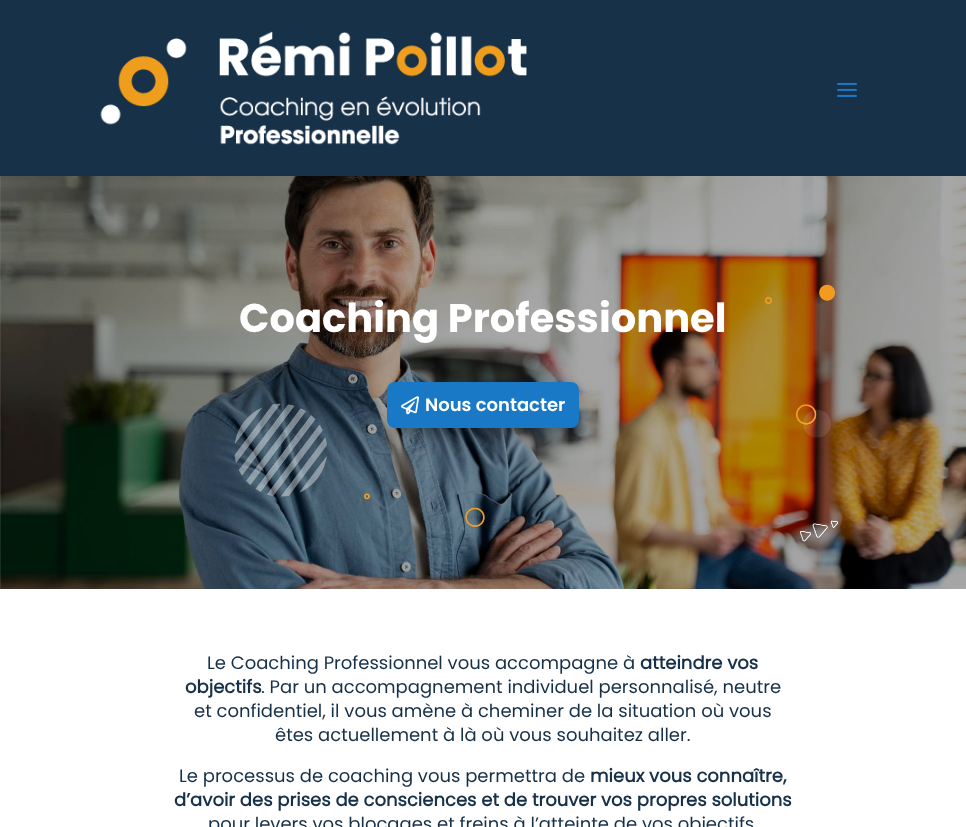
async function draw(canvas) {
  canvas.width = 966
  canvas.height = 827
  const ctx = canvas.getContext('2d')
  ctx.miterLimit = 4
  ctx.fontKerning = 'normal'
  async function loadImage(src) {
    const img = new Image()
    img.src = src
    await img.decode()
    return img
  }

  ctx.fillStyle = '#fff'
  ctx.fillRect(0, 0, 966, 827)
  ctx.fillStyle = '#173149'
  ctx.fillRect(0, 0, 966, 176)
  ctx.drawImage(await loadImage('image0.png'), 100, 31, 427, 114)
  ctx.drawImage(await loadImage('image1.png'), 837, 82, 20, 15)
  ctx.drawImage(await loadImage('image2.png'), 0, 176, 966, 413)
  ctx.font = 'bold 40px Poppins'
  ctx.fillStyle = '#fff'
  ctx.fillText('Coaching Professionnel', 239, 332)
  ctx.fillStyle = '#0000004d'
  ctx.filter = 'blur(6px)'
  ctx.beginPath()
  ctx.roundRect(393, 400, 180, 34, 2)
  ctx.fill()
  ctx.filter = 'none'
  ctx.fillStyle = '#1979c7'
  ctx.beginPath()
  ctx.roundRect(388, 383, 190, 44, 7)
  ctx.fill()
  ctx.strokeStyle = '#1979c7'
  ctx.lineWidth = 2
  ctx.stroke()
  ctx.drawImage(await loadImage('image3.png'), 401, 396, 18, 19)
  ctx.font = '600 18px Poppins'
  ctx.fillStyle = '#fff'
  ctx.fillText('Nous contacter', 425, 411)
  ctx.font = '18px Poppins'
  ctx.fillStyle = '#173149'
  ctx.fillText('Le Coaching Professionnel vous accompagne à', 207, 669)
  ctx.font = 'bold 18px "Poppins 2"'
  ctx.fillText('atteindre vos', 640, 669)
  ctx.fillText('objectifs', 185, 693)
  ctx.font = '18px Poppins'
  ctx.fillText('. Par un accompagnement individuel personnalisé, neutre', 261, 693)
  ctx.fillText('et confidentiel, il vous amène à cheminer de la situation où vous', 194, 717)
  ctx.fillText('êtes actuellement à là où vous souhaitez aller.', 275, 741)
  ctx.fillText('Le processus de coaching vous permettra de', 179, 782)
  ctx.font = 'bold 18px "Poppins 2"'
  ctx.fillText('mieux vous connaître,', 590, 782)
  ctx.fillText('d’avoir des prises de consciences et de trouver vos propres solutions', 174, 806)
  ctx.font = '18px Poppins'
  ctx.fillText('pour levers vos blocages et freins à l’atteinte de vos objectifs', 208, 830)
}

draw(document.querySelector('canvas'))
